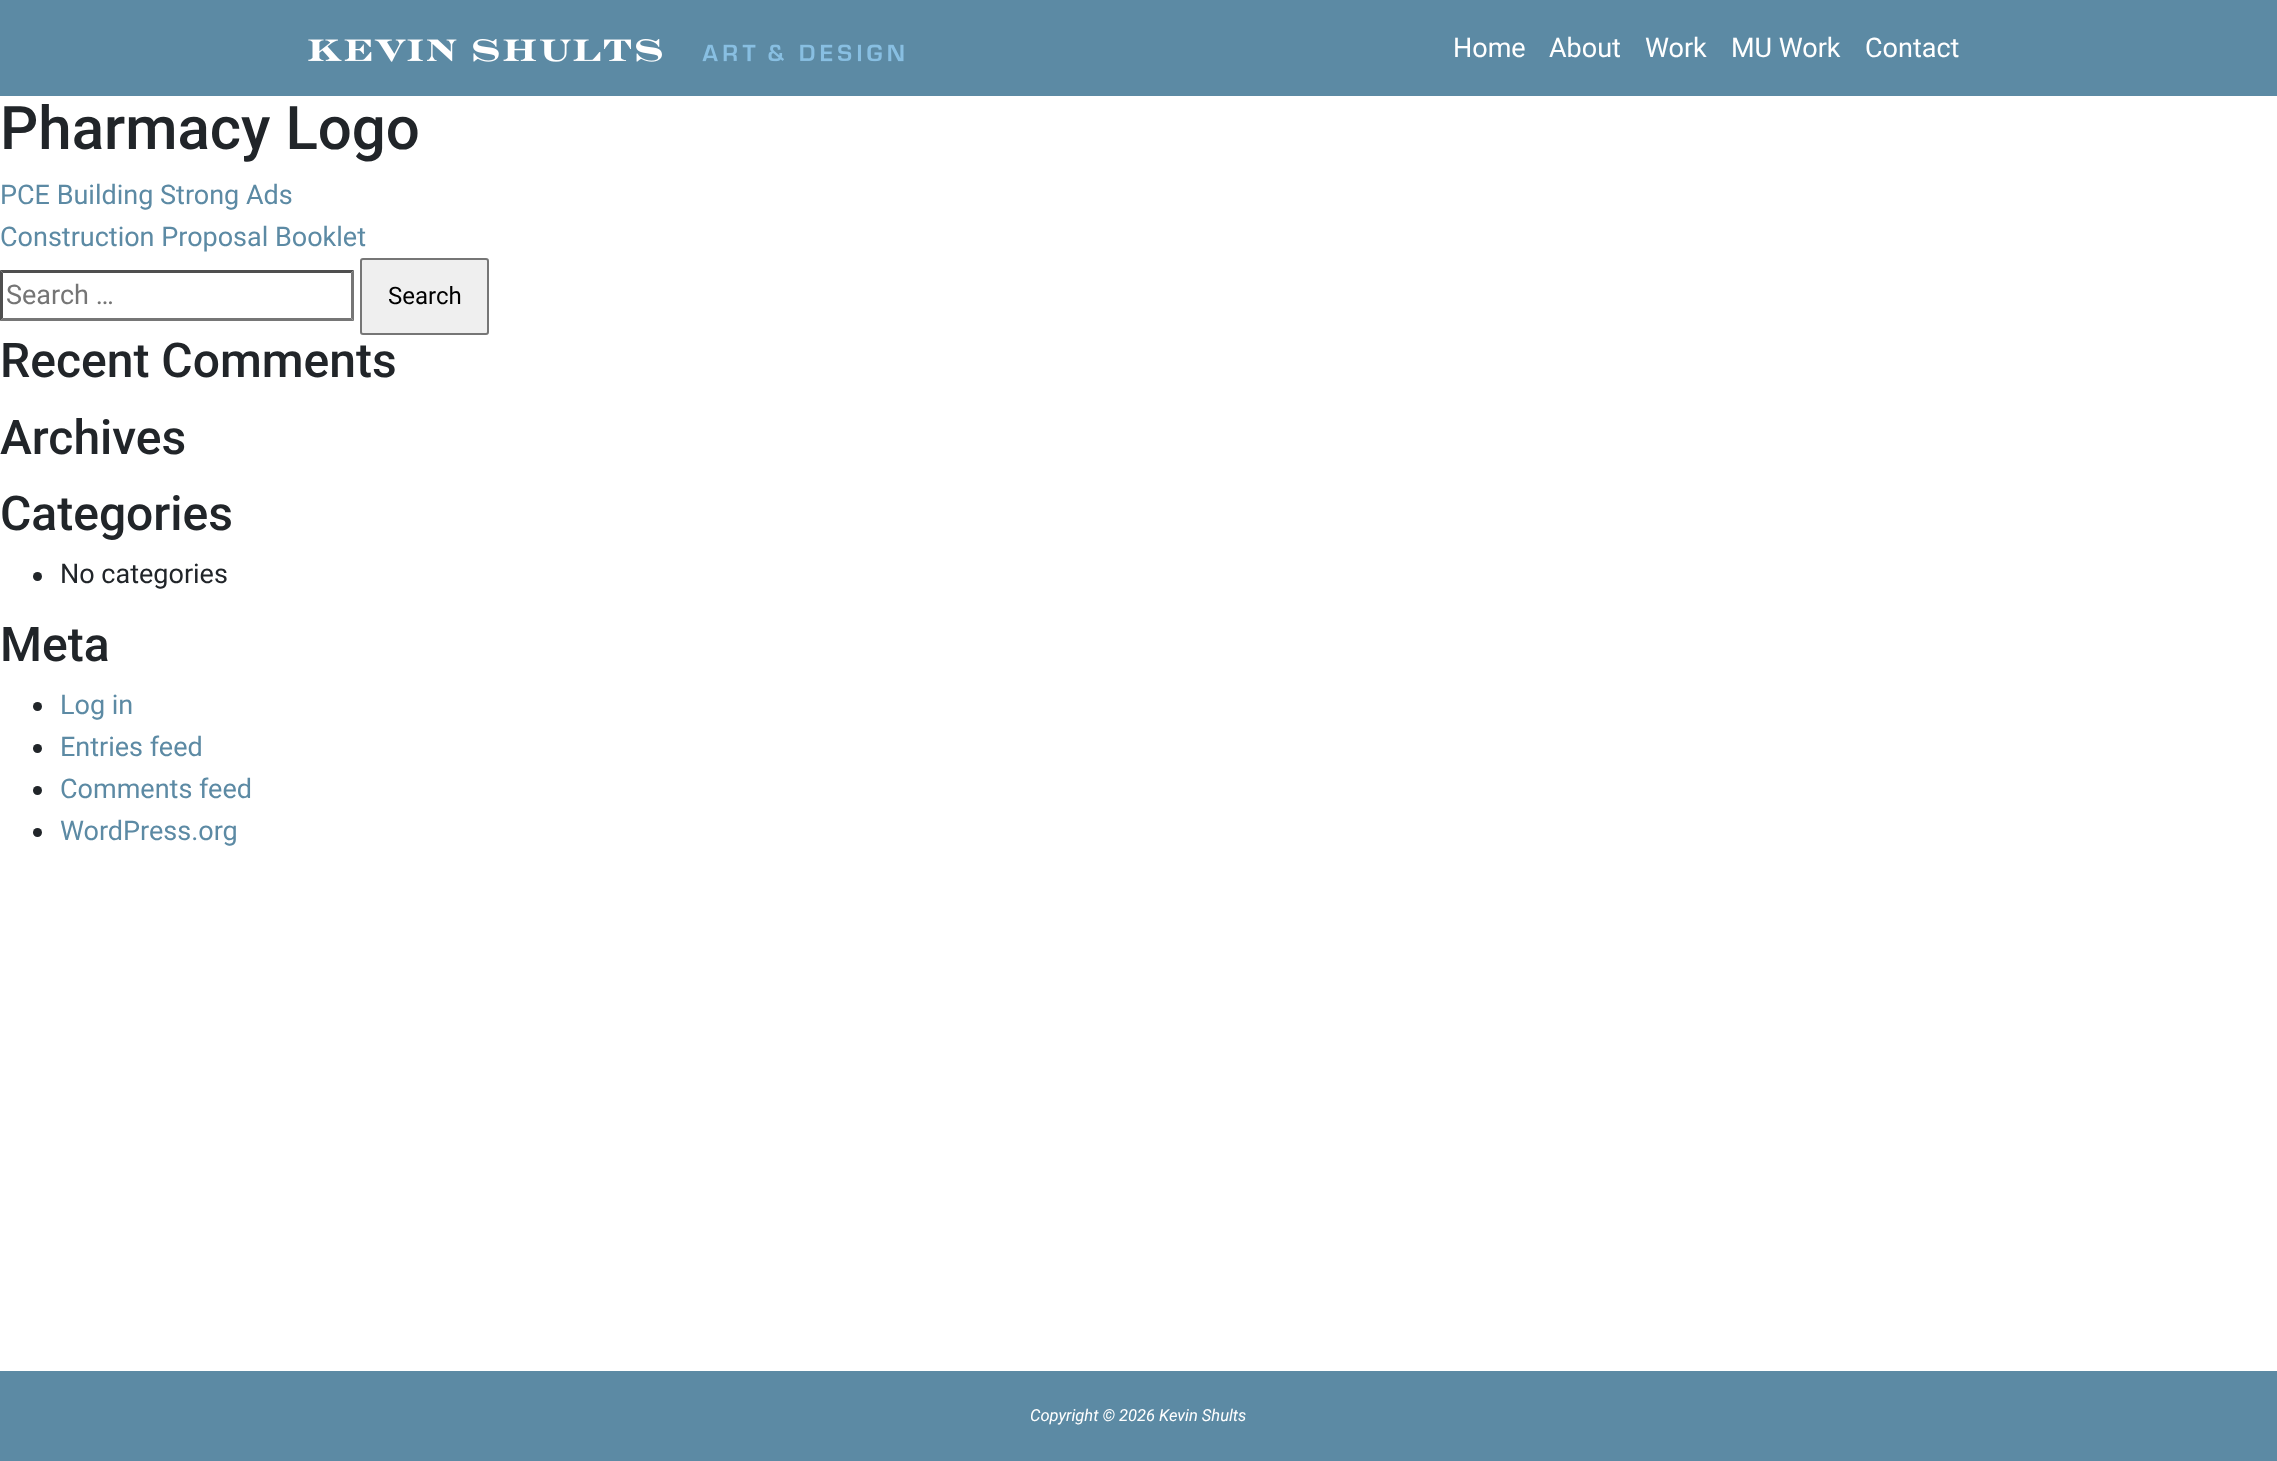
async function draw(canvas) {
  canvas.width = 2277
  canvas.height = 1461
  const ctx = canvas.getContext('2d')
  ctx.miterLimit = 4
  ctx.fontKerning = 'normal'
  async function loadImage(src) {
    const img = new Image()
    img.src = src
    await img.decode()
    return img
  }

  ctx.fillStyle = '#fff'
  ctx.fillRect(0, 0, 2277, 1461)
  ctx.fillStyle = '#5c8aa4'
  ctx.fillRect(0, 0, 2277, 96)
  ctx.drawImage(await loadImage('image0.png'), 308, 39, 596, 23)
  ctx.font = '27px Roboto'
  ctx.fillStyle = '#fff'
  ctx.fillText('Home', 1453, 57)
  ctx.fillText('About', 1549, 57)
  ctx.fillText('Work', 1645, 57)
  ctx.fillText('MU Work', 1731, 57)
  ctx.fillText('Contact', 1865, 57)
  ctx.font = '500 60px Roboto'
  ctx.fillStyle = '#212529'
  ctx.fillText('Pharmacy Logo', 0, 149)
  ctx.font = '27px Roboto'
  ctx.fillStyle = '#5c8aa4'
  ctx.fillText('PCE Building Strong Ads', 0, 204)
  ctx.fillText('Construction Proposal Booklet', 0, 246)
  ctx.fillStyle = '#4f4f4f'
  ctx.beginPath()
  ctx.moveTo(0, 270)
  ctx.lineTo(354, 270)
  ctx.lineTo(351, 273)
  ctx.lineTo(3, 273)
  ctx.closePath()
  ctx.fill()
  ctx.fillStyle = '#767676'
  ctx.beginPath()
  ctx.moveTo(354, 270)
  ctx.lineTo(354, 321)
  ctx.lineTo(351, 318)
  ctx.lineTo(351, 273)
  ctx.closePath()
  ctx.fill()
  ctx.beginPath()
  ctx.moveTo(354, 321)
  ctx.lineTo(0, 321)
  ctx.lineTo(3, 318)
  ctx.lineTo(351, 318)
  ctx.closePath()
  ctx.fill()
  ctx.fillStyle = '#4f4f4f'
  ctx.beginPath()
  ctx.moveTo(0, 321)
  ctx.lineTo(0, 270)
  ctx.lineTo(3, 273)
  ctx.lineTo(3, 318)
  ctx.closePath()
  ctx.fill()
  ctx.fillStyle = '#757575'
  ctx.fillText('Search …', 6, 304)
  ctx.fillStyle = '#efefef'
  ctx.beginPath()
  ctx.roundRect(361, 259, 127, 75, 2)
  ctx.fill()
  ctx.strokeStyle = '#767676'
  ctx.lineWidth = 2
  ctx.stroke()
  ctx.font = '24px Roboto'
  ctx.fillStyle = '#000'
  ctx.fillText('Search', 388, 304)
  ctx.font = '500 48px Roboto'
  ctx.fillStyle = '#212529'
  ctx.fillText('Recent Comments', 0, 377)
  ctx.fillText('Archives', 0, 454)
  ctx.fillText('Categories', 0, 530)
  ctx.beginPath()
  ctx.arc(37.5, 576.5, 4.5, 0, 2 * Math.PI)
  ctx.fill()
  ctx.font = '27px Roboto'
  ctx.fillText('No categories', 60, 583)
  ctx.font = '500 48px Roboto'
  ctx.fillText('Meta', 0, 661)
  ctx.beginPath()
  ctx.arc(37.5, 706.5, 4.5, 0, 2 * Math.PI)
  ctx.fill()
  ctx.font = '27px Roboto'
  ctx.fillStyle = '#5c8aa4'
  ctx.fillText('Log in', 60, 714)
  ctx.fillStyle = '#212529'
  ctx.beginPath()
  ctx.arc(37.5, 748.5, 4.5, 0, 2 * Math.PI)
  ctx.fill()
  ctx.fillStyle = '#5c8aa4'
  ctx.fillText('Entries feed', 60, 756)
  ctx.fillStyle = '#212529'
  ctx.beginPath()
  ctx.arc(37.5, 790.5, 4.5, 0, 2 * Math.PI)
  ctx.fill()
  ctx.fillStyle = '#5c8aa4'
  ctx.fillText('Comments feed', 60, 798)
  ctx.fillStyle = '#212529'
  ctx.beginPath()
  ctx.arc(37.5, 832.5, 4.5, 0, 2 * Math.PI)
  ctx.fill()
  ctx.fillStyle = '#5c8aa4'
  ctx.fillText('WordPress.org', 60, 840)
  ctx.fillRect(0, 1371, 2277, 90)
  ctx.font = 'italic 16.5px Roboto'
  ctx.fillStyle = '#fff'
  ctx.fillText('Copyright © 2026 Kevin Shults', 1030, 1421)
}

draw(document.querySelector('canvas'))
